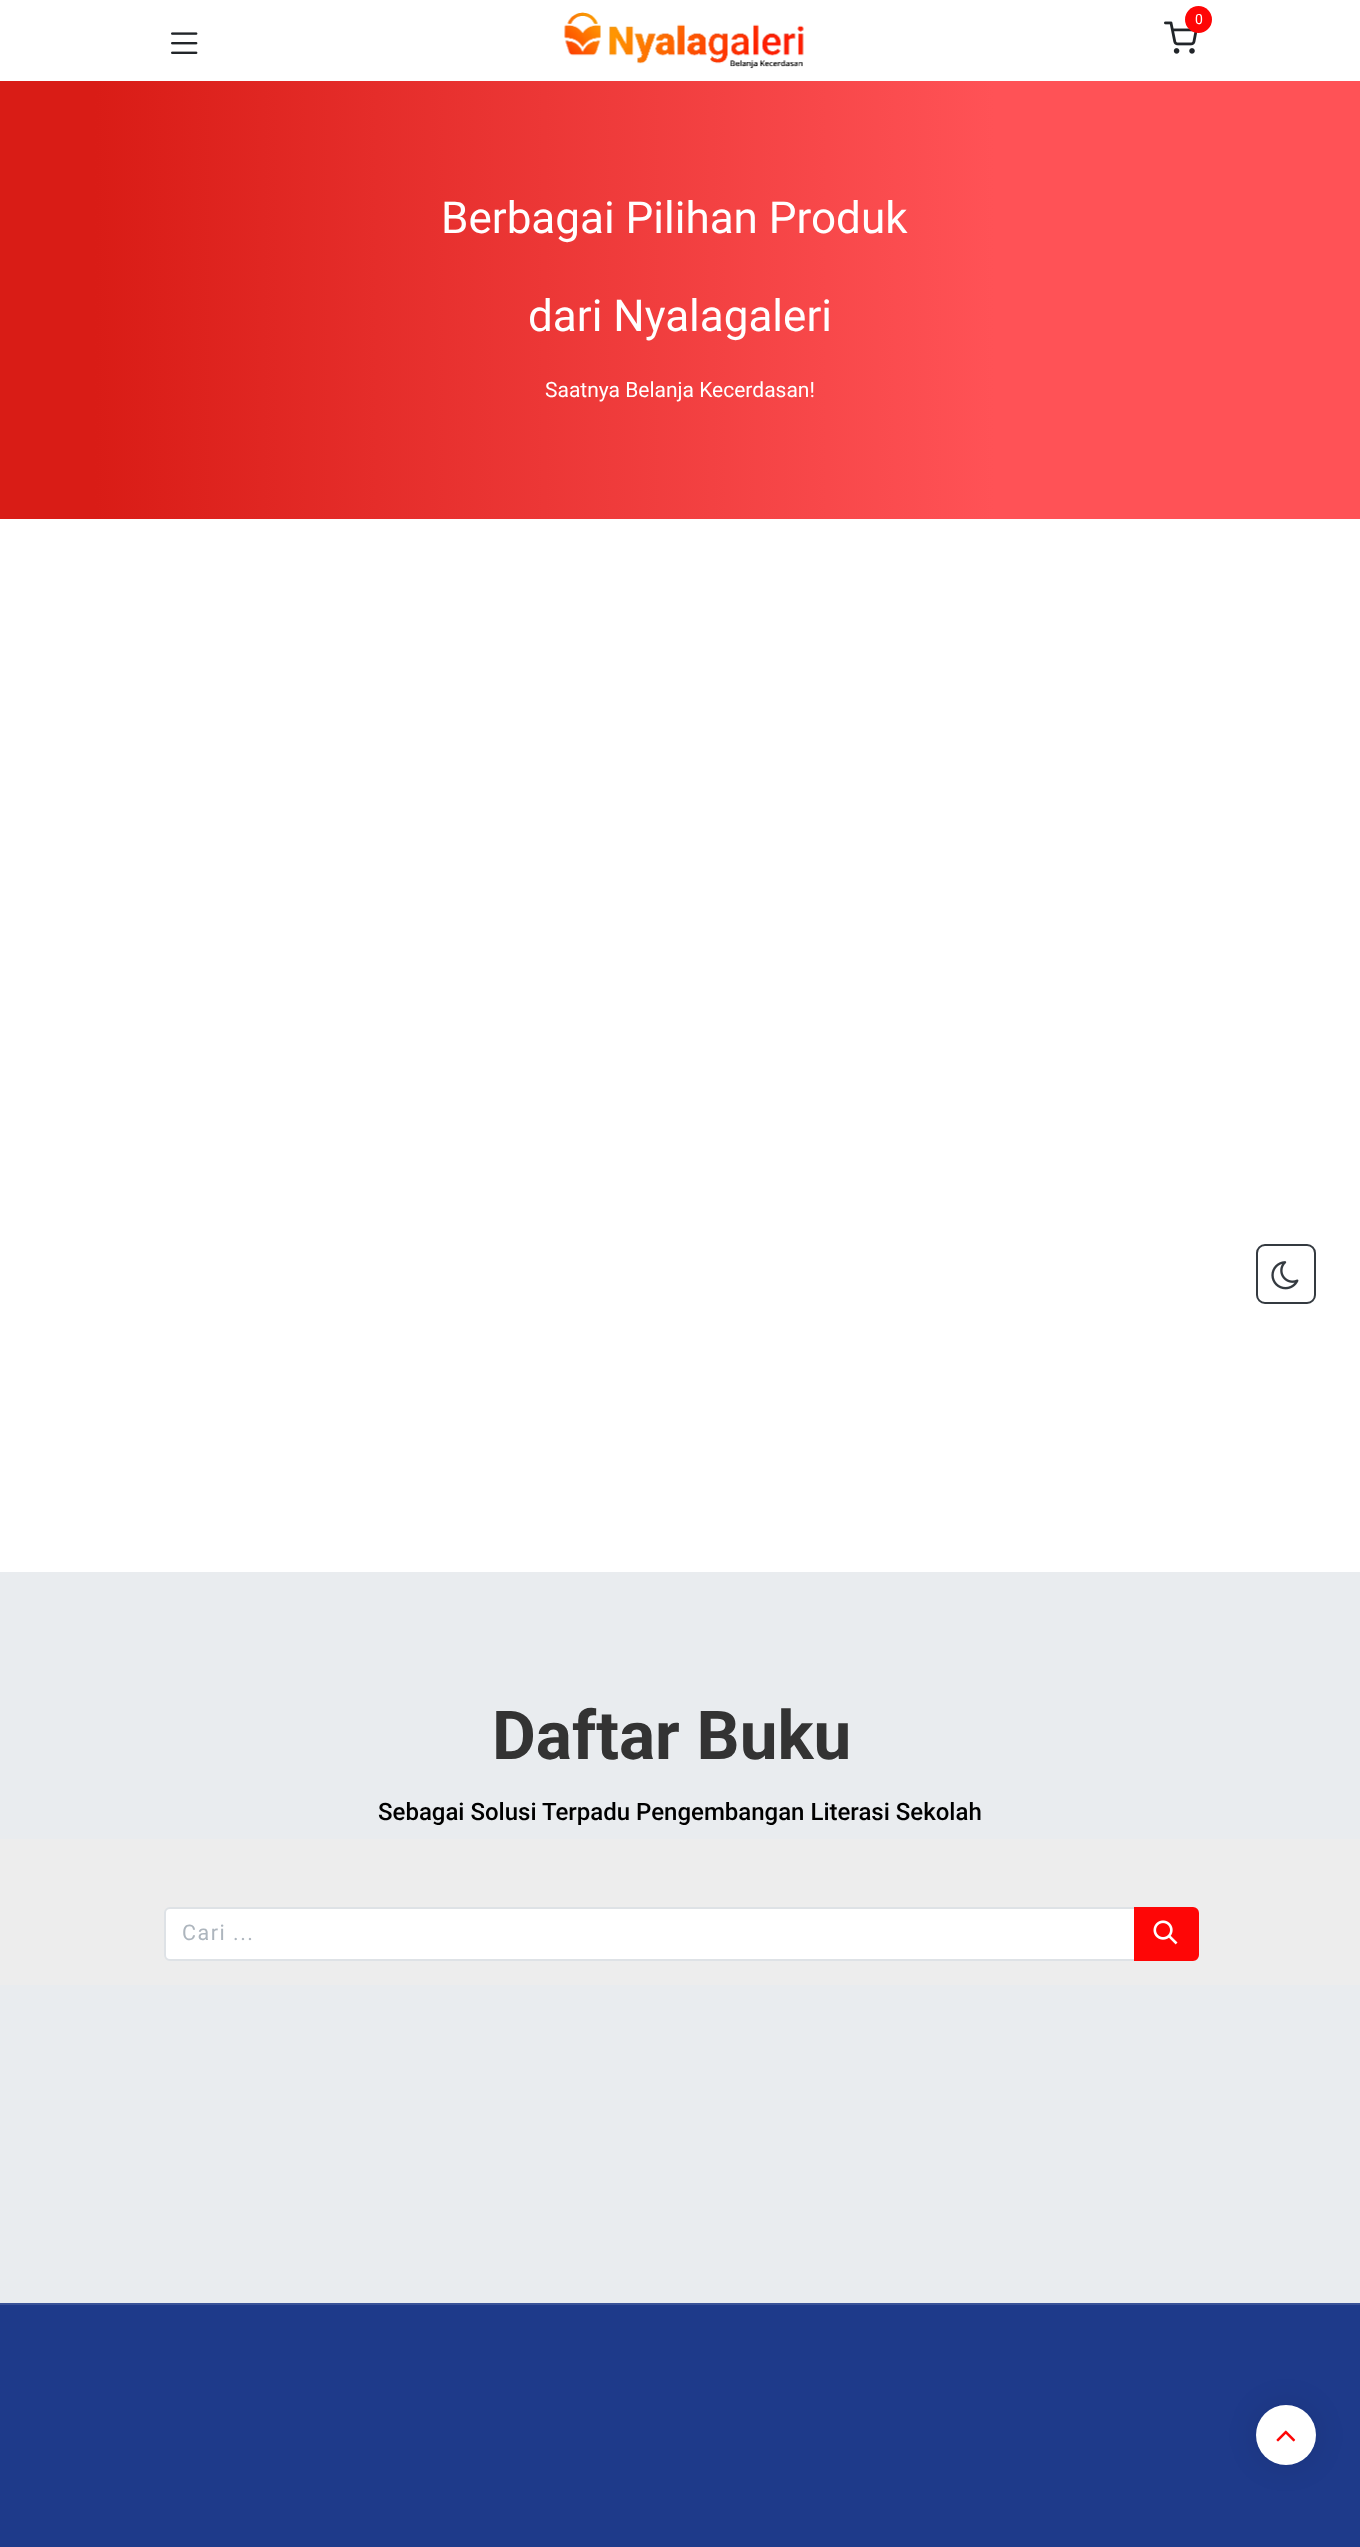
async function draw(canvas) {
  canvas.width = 1360
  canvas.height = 2547
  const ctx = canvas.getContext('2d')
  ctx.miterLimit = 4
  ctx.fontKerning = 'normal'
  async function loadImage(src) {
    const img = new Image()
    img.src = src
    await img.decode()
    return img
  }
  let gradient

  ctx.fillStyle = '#fff'
  ctx.fillRect(0, 0, 1360, 2547)
  ctx.drawImage(await loadImage('image0.png'), 564, 12, 240, 57)
  ctx.drawImage(await loadImage('image1.png'), 1164, 21, 34, 33)
  ctx.fillStyle = '#fe0606'
  ctx.beginPath()
  ctx.arc(1198.5, 19.5, 13.5, 0, 2 * Math.PI)
  ctx.fill()
  ctx.font = '14px Roboto'
  ctx.fillStyle = '#fff'
  ctx.fillText('0', 1195, 24)
  ctx.drawImage(await loadImage('image2.png'), 171, 32, 27, 22)
  gradient = ctx.createLinearGradient(0, 300, 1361, 300)
  gradient.addColorStop(0, '#d91c16')
  gradient.addColorStop(0.07, '#d91c16')
  gradient.addColorStop(0.73, '#ff5256')
  gradient.addColorStop(0.99, '#ff5256')
  ctx.fillStyle = gradient
  ctx.fillRect(0, 81, 1360, 438)
  ctx.font = '44px Roboto'
  ctx.fillStyle = '#fff'
  ctx.fillText('Berbagai Pilihan Produk', 441, 233)
  ctx.fillText('dari Nyalagaleri', 528, 331)
  ctx.font = '21px Roboto'
  ctx.fillText('Saatnya Belanja Kecerdasan!', 545, 397)
  ctx.fillStyle = '#e9ecef'
  ctx.fillRect(0, 1572, 1360, 267)
  ctx.font = 'bold 67.5px Roboto'
  ctx.fillStyle = '#333'
  ctx.fillText('Daftar Buku', 492, 1759)
  ctx.font = '500 24px Roboto'
  ctx.fillStyle = '#000'
  ctx.fillText('Sebagai Solusi Terpadu Pengembangan Literasi Sekolah', 378, 1820)
  ctx.fillStyle = '#ededed'
  ctx.fillRect(0, 1839, 1360, 146)
  ctx.fillStyle = '#fff'
  ctx.beginPath()
  ctx.roundRect(165, 1908, 970, 52, [5, 0, 0, 5])
  ctx.fill()
  ctx.strokeStyle = '#dee2e6'
  ctx.lineWidth = 2
  ctx.stroke()
  ctx.letterSpacing = '1.5px'
  ctx.font = '21.5px Roboto'
  ctx.fillStyle = '#adb5bd'
  ctx.fillText('Cari ...', 182, 1940)
  ctx.fillStyle = '#fe0606'
  ctx.beginPath()
  ctx.roundRect(1135, 1908, 63, 52, [0, 5, 5, 0])
  ctx.fill()
  ctx.strokeStyle = '#fe0606'
  ctx.stroke()
  ctx.drawImage(await loadImage('image3.png'), 1153, 1920, 25, 25)
  ctx.fillStyle = '#e9ecef'
  ctx.fillRect(0, 1985, 1360, 318)
  ctx.beginPath()
  ctx.roundRect(1257, 1245, 58, 58, 8)
  ctx.strokeStyle = '#343a40'
  ctx.stroke()
  ctx.drawImage(await loadImage('image4.png'), 1271, 1261, 28, 29)
  ctx.fillStyle = '#1e3a8a'
  ctx.fillRect(0, 2305, 1360, 242)
  ctx.fillStyle = '#395298'
  ctx.fillRect(0, 2303, 1360, 2)
  ctx.fillStyle = '#0000001a'
  ctx.filter = 'blur(15px)'
  ctx.beginPath()
  ctx.roundRect(1256, 2405, 60, 60, 30)
  ctx.fill()
  ctx.filter = 'none'
  ctx.fillStyle = '#fff'
  ctx.beginPath()
  ctx.arc(1286, 2435, 30, 0, 2 * Math.PI)
  ctx.fill()
  ctx.drawImage(await loadImage('image5.png'), 1276, 2430, 20, 12)
}

draw(document.querySelector('canvas'))
